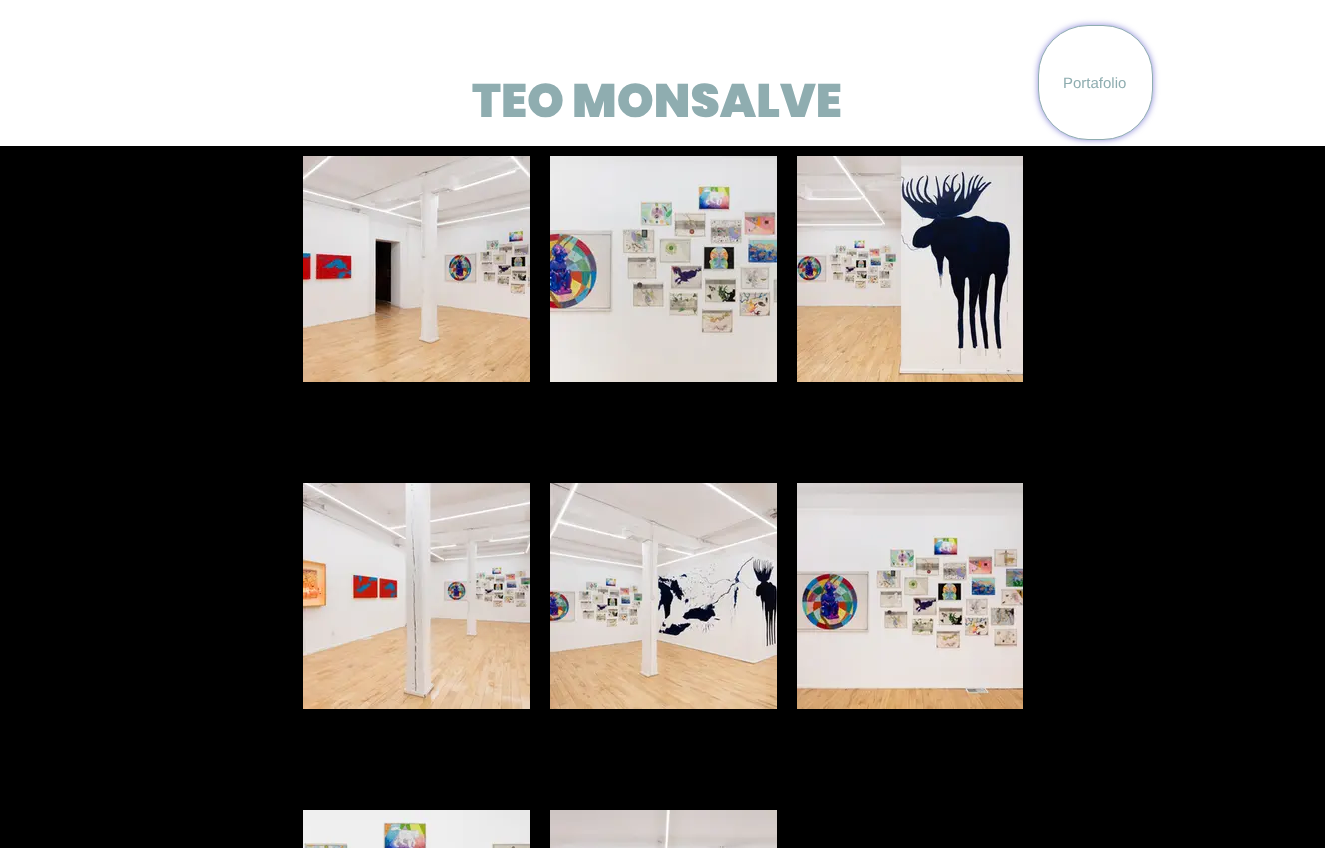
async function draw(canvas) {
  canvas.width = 1325
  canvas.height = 848
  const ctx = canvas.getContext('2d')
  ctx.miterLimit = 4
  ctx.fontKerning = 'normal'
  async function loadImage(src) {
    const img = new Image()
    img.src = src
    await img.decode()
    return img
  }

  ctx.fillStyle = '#fff'
  ctx.fillRect(0, 0, 1325, 848)
  ctx.font = '900 47px Poppins'
  ctx.fillStyle = '#8fadb0'
  ctx.fillText('TEO MONSALVE', 472, 117)
  ctx.fillStyle = '#000'
  ctx.fillRect(0, 146, 1325, 702)
  ctx.fillStyle = '#5f5bcdb3'
  ctx.filter = 'blur(3px)'
  ctx.beginPath()
  ctx.roundRect(1038, 25, 115, 115, 50)
  ctx.fill()
  ctx.filter = 'none'
  ctx.fillStyle = '#fff'
  ctx.beginPath()
  ctx.roundRect(1038.5, 25.5, 114, 114, 49.5)
  ctx.fill()
  ctx.strokeStyle = '#8fadb0'
  ctx.stroke()
  ctx.font = '15px Liberation Sans'
  ctx.fillStyle = '#8fadb0'
  ctx.fillText('Portafolio', 1063, 88)
  ctx.drawImage(await loadImage('image0.png'), 303, 156, 227, 226)
  ctx.drawImage(await loadImage('image1.png'), 550, 156, 227, 226)
  ctx.drawImage(await loadImage('image2.png'), 797, 156, 226, 226)
  ctx.drawImage(await loadImage('image3.png'), 303, 483, 227, 226)
  ctx.drawImage(await loadImage('image4.png'), 550, 483, 227, 226)
  ctx.drawImage(await loadImage('image5.png'), 797, 483, 226, 226)
  ctx.drawImage(await loadImage('image6.png'), 303, 810, 227, 38)
  ctx.drawImage(await loadImage('image7.png'), 550, 810, 227, 38)
}

draw(document.querySelector('canvas'))
